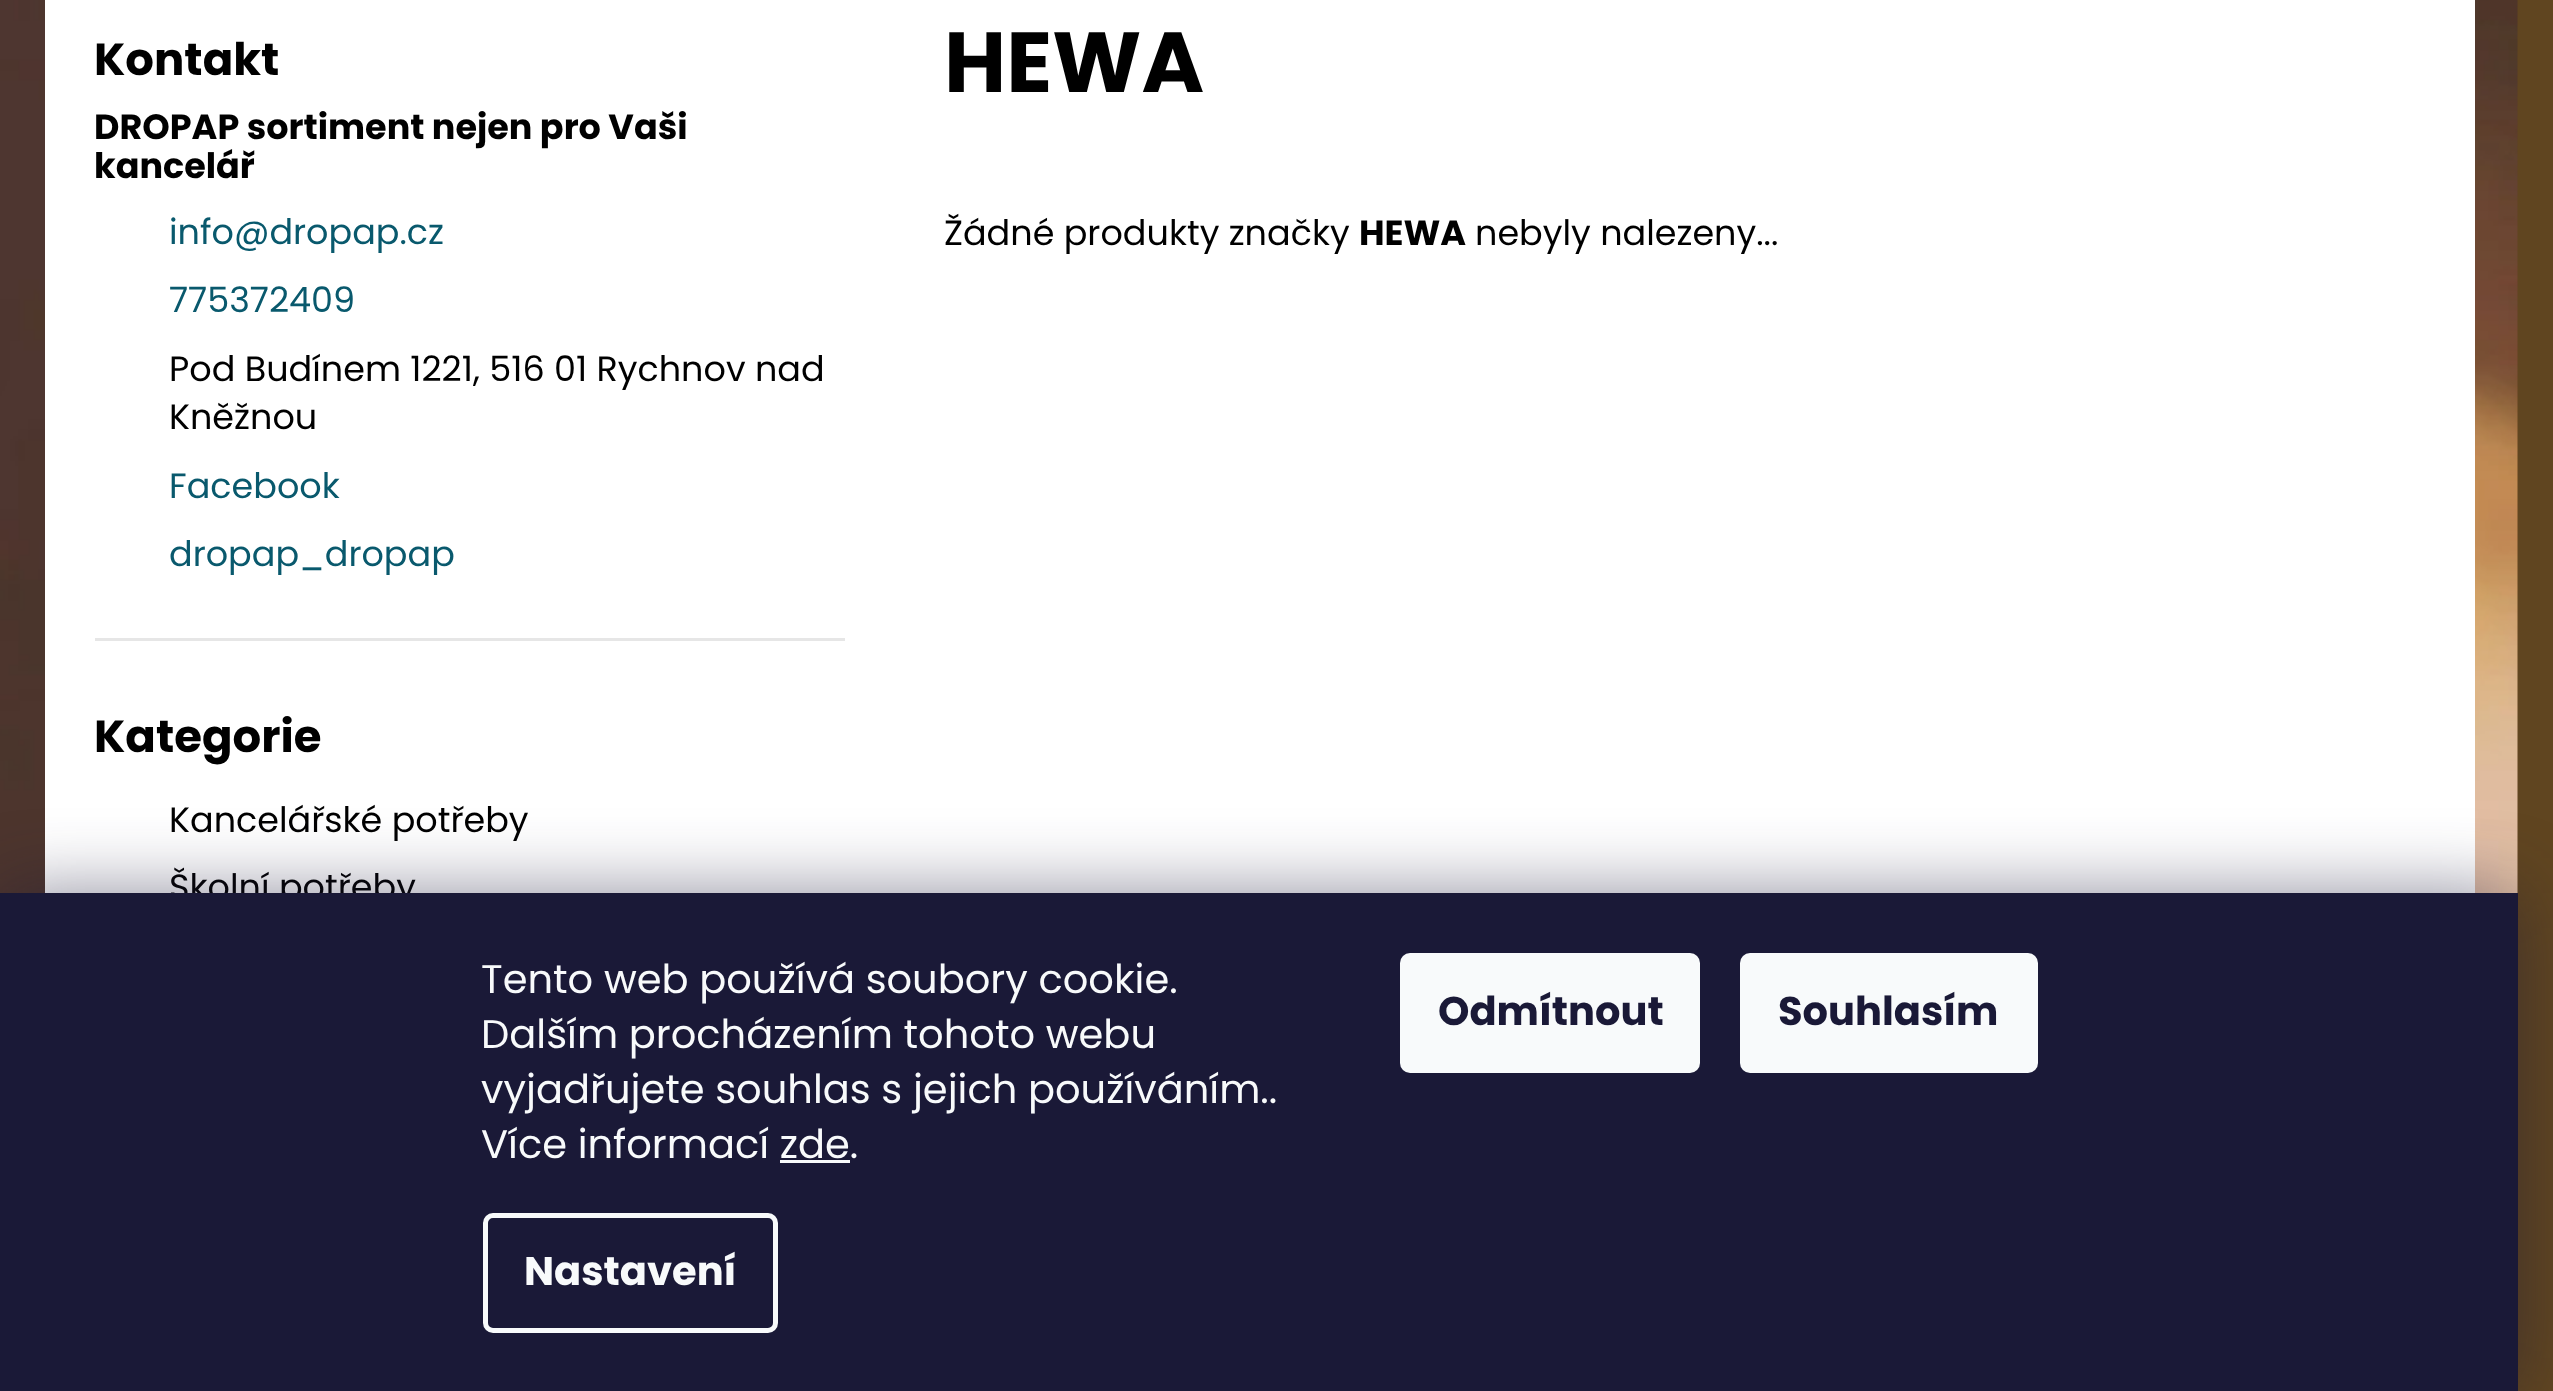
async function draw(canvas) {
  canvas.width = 2553
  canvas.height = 1391
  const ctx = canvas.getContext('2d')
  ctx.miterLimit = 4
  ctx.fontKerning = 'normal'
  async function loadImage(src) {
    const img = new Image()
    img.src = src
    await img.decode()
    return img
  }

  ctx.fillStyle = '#604520'
  ctx.fillRect(0, 0, 2553, 1391)
  ctx.drawImage(await loadImage('image0.png'), 0, 0, 2518, 893)
  ctx.fillStyle = '#fff'
  ctx.fillRect(45, 0, 2430, 893)
  ctx.font = 'bold 45px Poppins'
  ctx.fillStyle = '#000'
  ctx.fillText('Kontakt', 94, 75)
  ctx.font = 'bold 35px Poppins'
  ctx.fillText('DROPAP sortiment nejen pro Vaši', 94, 139)
  ctx.fillText('kancelář', 94, 178)
  ctx.font = '35px Poppins'
  ctx.fillStyle = '#09596d'
  ctx.fillText('info@dropap.cz', 169, 244)
  ctx.fillText('775372409', 169, 312)
  ctx.fillStyle = '#000'
  ctx.fillText('Pod Budínem 1221, 516 01 Rychnov nad', 169, 381)
  ctx.fillText('Kněžnou', 169, 429)
  ctx.fillStyle = '#09596d'
  ctx.fillText('Facebook', 169, 498)
  ctx.fillText('dropap_dropap', 169, 566)
  ctx.fillStyle = '#e6e6e6'
  ctx.fillRect(95, 638, 750, 3)
  ctx.font = 'bold 45px Poppins'
  ctx.fillStyle = '#000'
  ctx.fillText('Kategorie', 94, 752)
  ctx.font = '35px Poppins'
  ctx.fillText('Kancelářské potřeby', 169, 832)
  ctx.fillText('Školní potřeby', 169, 899)
  ctx.font = 'bold 85px Poppins'
  ctx.fillText('HEWA', 944, 92)
  ctx.font = '35px Poppins'
  ctx.fillText('Žádné produkty značky', 944, 245)
  ctx.font = 'bold 35px Poppins'
  ctx.fillText('HEWA', 1359, 245)
  ctx.font = '35px Poppins'
  ctx.fillText('nebyly nalezeny...', 1475, 245)
  ctx.fillStyle = '#1b193980'
  ctx.filter = 'blur(37.5px)'
  ctx.beginPath()
  ctx.rect(0, 893, 2518, 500)
  ctx.fill()
  ctx.filter = 'none'
  ctx.fillStyle = '#1a1937'
  ctx.fillRect(0, 893, 2518, 498)
  ctx.font = '40px Poppins'
  ctx.fillStyle = '#f8fafb'
  ctx.fillText('Tento web používá soubory cookie.', 481, 993)
  ctx.fillText('Dalším procházením tohoto webu', 481, 1048)
  ctx.fillText('vyjadřujete souhlas s jejich používáním..', 481, 1103)
  ctx.fillText('Více informací zde.', 481, 1158)
  ctx.fillRect(780, 1160, 70, 3)
  ctx.beginPath()
  ctx.roundRect(485.5, 1215.5, 290, 115, 7.5)
  ctx.strokeStyle = '#f8fafb'
  ctx.lineWidth = 5
  ctx.stroke()
  ctx.font = 'bold 40px Poppins'
  ctx.fillText('Nastavení', 524, 1285)
  ctx.beginPath()
  ctx.roundRect(1400, 953, 300, 120, 10)
  ctx.fill()
  ctx.fillStyle = '#1a1937'
  ctx.fillText('Odmítnout', 1438, 1025)
  ctx.fillStyle = '#f8fafb'
  ctx.beginPath()
  ctx.roundRect(1740, 953, 298, 120, 10)
  ctx.fill()
  ctx.fillStyle = '#1a1937'
  ctx.fillText('Souhlasím', 1778, 1025)
}

draw(document.querySelector('canvas'))
